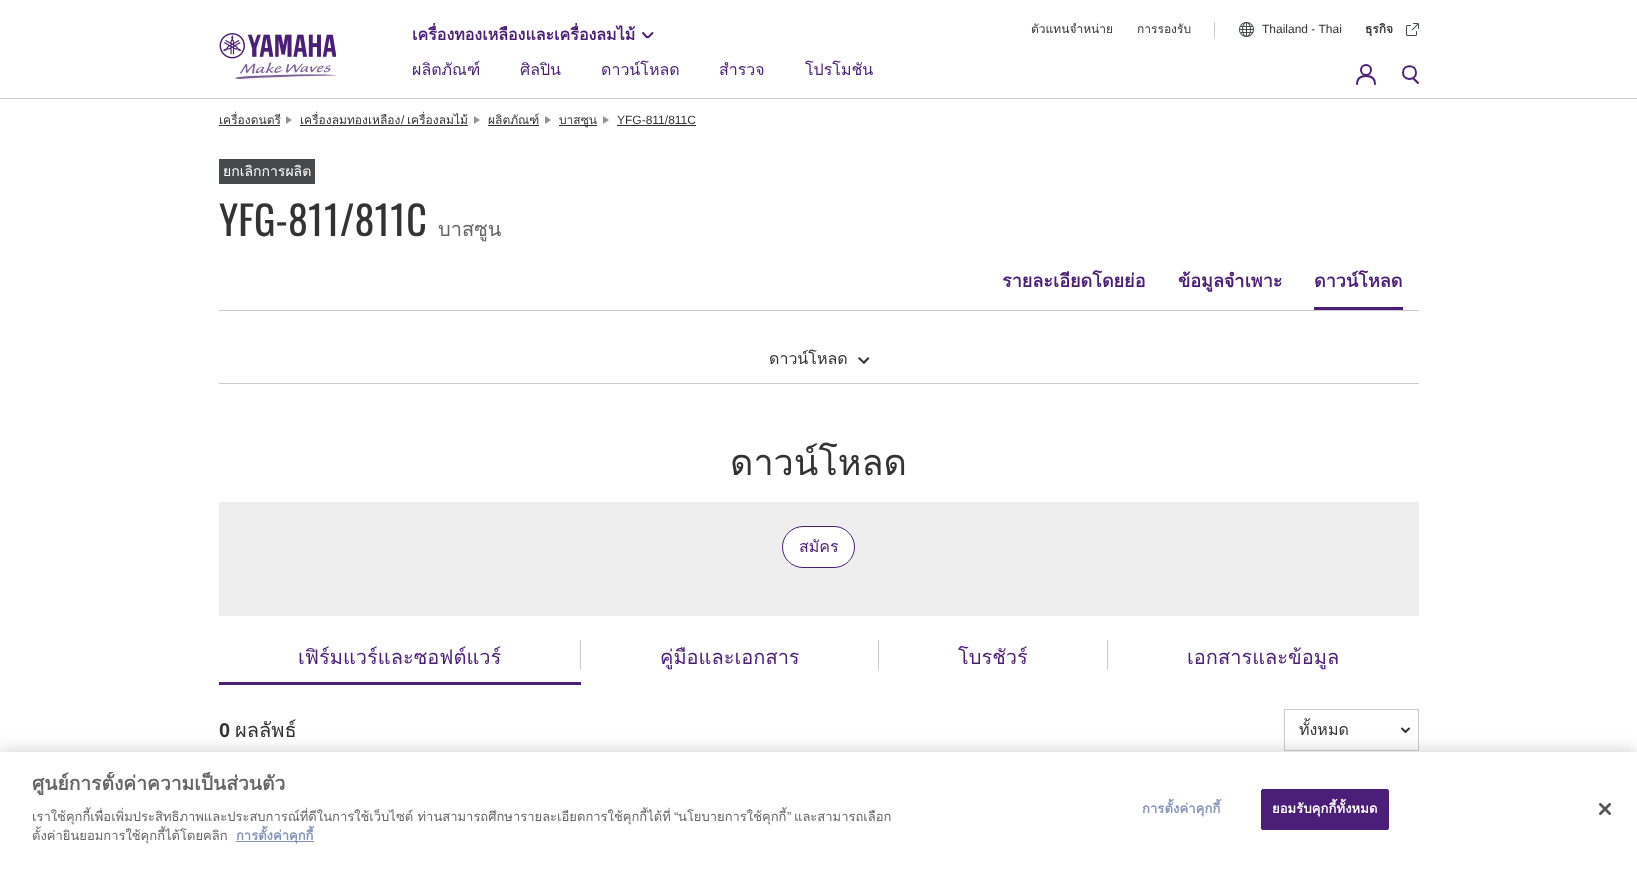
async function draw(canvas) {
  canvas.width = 1637
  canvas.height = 869
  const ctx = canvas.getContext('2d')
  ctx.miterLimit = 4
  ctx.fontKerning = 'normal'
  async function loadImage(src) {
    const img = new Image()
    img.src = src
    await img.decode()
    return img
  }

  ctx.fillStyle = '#fff'
  ctx.fillRect(0, 0, 1637, 869)
  ctx.fillStyle = '#ccc'
  ctx.fillRect(0, 98, 1637, 1)
  ctx.drawImage(await loadImage('image0.png'), 219, 33, 117, 46)
  ctx.font = 'bold 16px Loma'
  ctx.fillStyle = '#4b1e78'
  ctx.fillText('เครื่องทองเหลืองและเครื่องลมไม้', 412, 40)
  ctx.save()
  ctx.beginPath()
  ctx.moveTo(655, 31.5)
  ctx.lineTo(655, 38.5)
  ctx.lineTo(642, 38.5)
  ctx.lineTo(642, 31.5)
  ctx.closePath()
  ctx.clip()
  ctx.beginPath()
  ctx.moveTo(655, 31.5)
  ctx.lineTo(655, 38.5)
  ctx.lineTo(642, 38.5)
  ctx.lineTo(642, 31.5)
  ctx.closePath()
  ctx.clip()
  ctx.beginPath()
  ctx.moveTo(652.5, 33)
  ctx.lineTo(647.5, 38)
  ctx.lineTo(643, 33)
  ctx.strokeStyle = '#4b1e78'
  ctx.lineWidth = 1.9
  ctx.lineCap = 'round'
  ctx.lineJoin = 'round'
  ctx.stroke()
  ctx.restore()
  ctx.font = '12px Loma'
  ctx.fillStyle = '#333'
  ctx.fillText('ตัวแทนจำหน่าย', 1031, 33)
  ctx.fillText('การรองรับ', 1137, 33)
  ctx.fillStyle = '#ccc'
  ctx.fillRect(1214, 22, 1, 16)
  ctx.drawImage(await loadImage('image1.png'), 1239, 22, 15, 15)
  ctx.font = '12px Liberation Sans'
  ctx.fillStyle = '#333'
  ctx.fillText('Thailand - Thai', 1262, 33)
  ctx.font = 'bold 12px Loma'
  ctx.fillText('ธุรกิจ', 1365, 33)
  ctx.drawImage(await loadImage('image2.png'), 1406, 23, 13, 13)
  ctx.font = '16px Loma'
  ctx.fillStyle = '#4b1e78'
  ctx.fillText('ผลิตภัณฑ์', 412, 75)
  ctx.fillText('ศิลปิน', 520, 75)
  ctx.fillText('ดาวน์โหลด', 601, 75)
  ctx.fillText('สำรวจ', 719, 75)
  ctx.fillText('โปรโมชัน', 805, 75)
  ctx.beginPath()
  ctx.arc(1366, 70, 5, 0, 2 * Math.PI)
  ctx.strokeStyle = '#4b1e78'
  ctx.lineWidth = 2
  ctx.stroke()
  ctx.beginPath()
  ctx.moveTo(1357, 84)
  ctx.bezierCurveTo(1357, 78.5, 1360.5, 76, 1366, 76)
  ctx.bezierCurveTo(1371.5, 76, 1375, 78.5, 1375, 84)
  ctx.lineCap = 'round'
  ctx.stroke()
  ctx.beginPath()
  ctx.moveTo(1413, 78)
  ctx.lineTo(1418, 83)
  ctx.closePath()
  ctx.moveTo(1403, 72.5)
  ctx.bezierCurveTo(1403, 64, 1416, 64, 1416, 72.5)
  ctx.bezierCurveTo(1416, 81, 1403, 81, 1403, 72.5)
  ctx.closePath()
  ctx.lineJoin = 'round'
  ctx.stroke()
  ctx.font = '12px Loma'
  ctx.fillStyle = '#333'
  ctx.fillText('เครื่องดนตรี', 219, 124)
  ctx.fillRect(219, 125, 61, 1)
  ctx.fillStyle = '#949494'
  ctx.beginPath()
  ctx.moveTo(286, 124)
  ctx.lineTo(286, 116)
  ctx.lineTo(292, 120)
  ctx.closePath()
  ctx.fill()
  ctx.fillStyle = '#333'
  ctx.fillText('เครื่องลมทองเหลือง', 300, 124)
  ctx.font = '12px Liberation Sans'
  ctx.fillText('/', 401, 124)
  ctx.fillRect(300, 125, 168, 1)
  ctx.font = '12px Loma'
  ctx.fillText('เครื่องลมไม้', 407, 124)
  ctx.fillStyle = '#949494'
  ctx.beginPath()
  ctx.moveTo(474, 124)
  ctx.lineTo(474, 116)
  ctx.lineTo(480, 120)
  ctx.closePath()
  ctx.fill()
  ctx.fillStyle = '#333'
  ctx.fillText('ผลิตภัณฑ์', 488, 124)
  ctx.fillRect(488, 125, 51, 1)
  ctx.fillStyle = '#949494'
  ctx.beginPath()
  ctx.moveTo(545, 124)
  ctx.lineTo(545, 116)
  ctx.lineTo(551, 120)
  ctx.closePath()
  ctx.fill()
  ctx.fillStyle = '#333'
  ctx.fillRect(559, 125, 38, 1)
  ctx.fillText('บาสซูน', 559, 124)
  ctx.fillStyle = '#949494'
  ctx.beginPath()
  ctx.moveTo(603, 124)
  ctx.lineTo(603, 116)
  ctx.lineTo(609, 120)
  ctx.closePath()
  ctx.fill()
  ctx.font = '12px Liberation Sans'
  ctx.fillStyle = '#333'
  ctx.fillText('YFG-811/811C', 617, 124)
  ctx.fillRect(617, 125, 79, 1)
  ctx.fillStyle = '#ccc'
  ctx.fillRect(219, 310, 1200, 1)
  ctx.fillStyle = '#474a4c'
  ctx.fillRect(219, 159, 96, 25)
  ctx.font = '14px Loma'
  ctx.fillStyle = '#fff'
  ctx.fillText('ยกเลิกการผลิต', 223, 176)
  ctx.font = '40px Oswald'
  ctx.fillStyle = '#333'
  ctx.fillText('YFG-811/811C', 219, 236)
  ctx.font = '20px Loma'
  ctx.fillStyle = '#666'
  ctx.fillText('บาสซูน', 438, 236)
  ctx.font = 'bold 18px Loma'
  ctx.fillStyle = '#4b1e78'
  ctx.fillText('รายละเอียดโดยย่อ', 1002, 287)
  ctx.fillText('ข้อมูลจำเพาะ', 1178, 287)
  ctx.fillRect(1314, 307, 89, 3)
  ctx.fillText('ดาวน์โหลด', 1314, 287)
  ctx.fillStyle = '#ccc'
  ctx.fillRect(219, 383, 1200, 1)
  ctx.font = '16px Loma'
  ctx.fillStyle = '#333'
  ctx.fillText('ดาวน์โหลด', 769, 364)
  ctx.beginPath()
  ctx.moveTo(869.5, 358.5)
  ctx.lineTo(864, 364)
  ctx.lineTo(862.5, 362.5)
  ctx.lineTo(868, 357)
  ctx.closePath()
  ctx.fill()
  ctx.beginPath()
  ctx.moveTo(865, 362.5)
  ctx.lineTo(864, 364)
  ctx.lineTo(858, 358.5)
  ctx.lineTo(859.5, 357)
  ctx.closePath()
  ctx.fill()
  ctx.font = '36px Loma'
  ctx.fillText('ดาวน์โหลด', 730, 475)
  ctx.fillStyle = '#eee'
  ctx.fillRect(219, 502, 1200, 114)
  ctx.fillStyle = '#fff'
  ctx.beginPath()
  ctx.roundRect(782.5, 526.5, 72, 41, 20.5)
  ctx.fill()
  ctx.lineWidth = 1
  ctx.lineJoin = 'miter'
  ctx.stroke()
  ctx.font = '16px Loma'
  ctx.fillStyle = '#4b1e78'
  ctx.fillText('สมัคร', 799, 552)
  ctx.fillRect(219, 682, 362, 3)
  ctx.font = '20px Loma'
  ctx.fillText('เฟิร์มแวร์และซอฟต์แวร์', 298, 664)
  ctx.fillStyle = '#ccc'
  ctx.fillRect(580, 640, 1, 30)
  ctx.fillStyle = '#4b1e78'
  ctx.fillText('คู่มือและเอกสาร', 660, 664)
  ctx.fillStyle = '#ccc'
  ctx.fillRect(878, 640, 1, 30)
  ctx.fillStyle = '#4b1e78'
  ctx.fillText('โบรชัวร์', 958, 664)
  ctx.fillStyle = '#ccc'
  ctx.fillRect(1107, 640, 1, 30)
  ctx.fillStyle = '#4b1e78'
  ctx.fillText('เอกสารและข้อมูล', 1187, 664)
  ctx.font = 'bold 20px Liberation Sans'
  ctx.fillStyle = '#333'
  ctx.fillText('0', 219, 737)
  ctx.font = '20px Loma'
  ctx.fillText('ผลลัพธ์', 235, 737)
  ctx.strokeStyle = '#ccc'
  ctx.strokeRect(1284.5, 709.5, 134, 41)
  ctx.save()
  ctx.beginPath()
  ctx.rect(1299, 718, 87, 24)
  ctx.clip()
  ctx.font = '16px Loma'
  ctx.fillText('ทั้งหมด', 1299, 735)
  ctx.restore()
  ctx.beginPath()
  ctx.moveTo(1409, 728.5)
  ctx.lineTo(1405.5, 732)
  ctx.lineTo(1402, 728.5)
  ctx.strokeStyle = '#333'
  ctx.lineWidth = 1.9
  ctx.lineJoin = 'round'
  ctx.stroke()
  ctx.fillStyle = '#00000033'
  ctx.filter = 'blur(9px)'
  ctx.beginPath()
  ctx.rect(0, 752, 1637, 117)
  ctx.fill()
  ctx.filter = 'none'
  ctx.fillStyle = '#fff'
  ctx.fillRect(0, 752, 1637, 117)
  ctx.save()
  ctx.beginPath()
  ctx.rect(32, 772, 868, 87)
  ctx.clip()
  ctx.font = 'bold 19.25px Loma'
  ctx.fillStyle = '#666'
  ctx.fillText('ศูนย์การตั้งค่าความเป็นส่วนตัว', 32, 790)
  ctx.restore()
  ctx.font = '13px Loma'
  ctx.fillStyle = '#666'
  ctx.fillText('เราใช้คุกกี้เพื่อเพิ่มประสิทธิภาพและประสบการณ์ที่ดีในการใช้เว็บไซต์ ท่านสามารถศึกษารายละเอียดการใช้คุกกี้ได้ที่', 32, 821)
  ctx.font = '13px Liberation Sans'
  ctx.fillText('“', 674, 821)
  ctx.font = '13px Loma'
  ctx.fillText('นโยบายการใช้คุกกี้', 678, 821)
  ctx.font = '13px Liberation Sans'
  ctx.fillText('”', 787, 821)
  ctx.font = '13px Loma'
  ctx.fillText('และสามารถเลือก', 794, 821)
  ctx.save()
  ctx.beginPath()
  ctx.rect(32, 772, 868, 87)
  ctx.clip()
  ctx.fillText('ตั้งค่ายินยอมการใช้คุกกี้ได้โดยคลิก', 32, 840)
  ctx.restore()
  ctx.fillStyle = '#8492b9'
  ctx.fillRect(236, 841, 78, 1)
  ctx.font = 'bold 13px Loma'
  ctx.fillText('การตั้งค่าคุกกี้', 236, 840)
  ctx.letterSpacing = '0.1px'
  ctx.fillText('การตั้งค่าคุกกี้', 1142, 813)
  ctx.fillStyle = '#4b1e78'
  ctx.beginPath()
  ctx.roundRect(1261.5, 789.5, 127, 40, 1.5)
  ctx.fill()
  ctx.strokeStyle = '#4b1e78'
  ctx.lineWidth = 1
  ctx.lineJoin = 'miter'
  ctx.stroke()
  ctx.fillStyle = '#fff'
  ctx.fillText('ยอมรับคุกกี้ทั้งหมด', 1272, 813)
  ctx.drawImage(await loadImage('image3.png'), 1599, 803, 12, 12)
}

draw(document.querySelector('canvas'))
